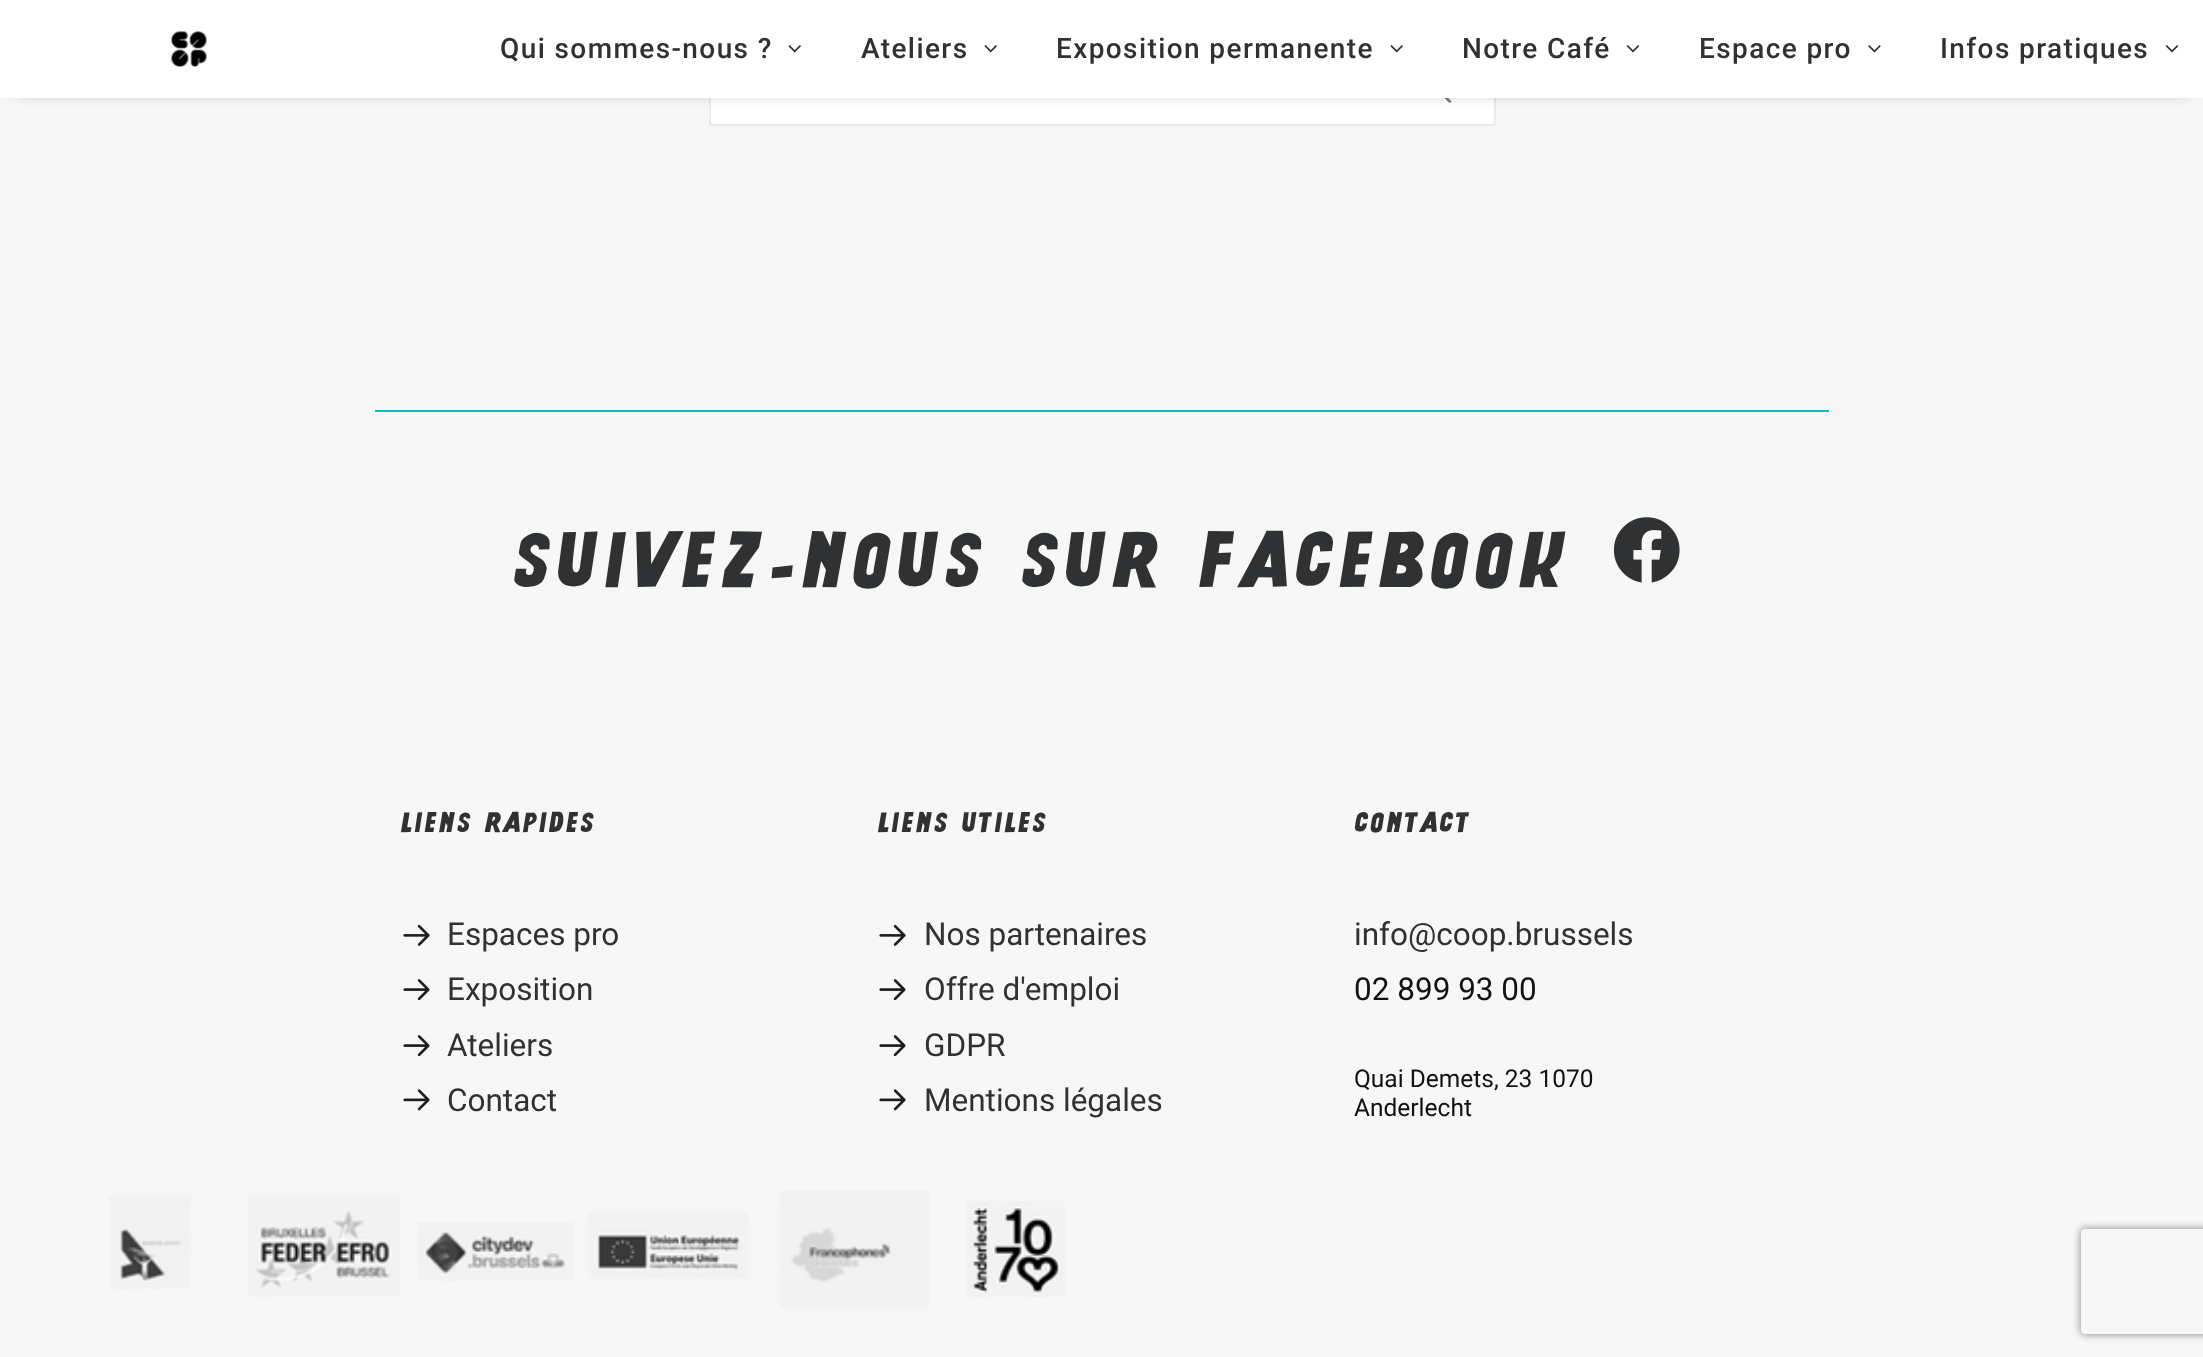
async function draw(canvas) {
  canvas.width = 2203
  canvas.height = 1357
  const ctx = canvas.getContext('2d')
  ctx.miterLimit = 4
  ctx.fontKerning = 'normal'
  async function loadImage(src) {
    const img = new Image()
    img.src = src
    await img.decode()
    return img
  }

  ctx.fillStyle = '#f7f7f7'
  ctx.fillRect(0, 0, 2203, 1357)
  ctx.fillStyle = '#fff'
  ctx.beginPath()
  ctx.roundRect(710, 52, 785, 73, 3)
  ctx.fill()
  ctx.strokeStyle = '#eaeaea'
  ctx.lineWidth = 2
  ctx.stroke()
  ctx.drawImage(await loadImage('image4.png'), 1444, 98, 8, 5)
  ctx.fillStyle = '#00000099'
  ctx.filter = 'blur(9px)'
  ctx.beginPath()
  ctx.rect(18, 25, 2170, 63)
  ctx.fill()
  ctx.filter = 'none'
  ctx.fillStyle = '#fff'
  ctx.fillRect(0, 0, 2203, 98)
  ctx.drawImage(await loadImage('image0.png'), 170, 31, 37, 36)
  ctx.letterSpacing = '1.4px'
  ctx.font = '500 28px Roboto'
  ctx.fillStyle = '#303133'
  ctx.fillText('Qui sommes-nous ?', 500, 58)
  ctx.drawImage(await loadImage('image1.png'), 788, 45, 13, 8)
  ctx.fillText('Ateliers', 861, 58)
  ctx.drawImage(await loadImage('image1.png'), 984, 45, 13, 8)
  ctx.fillText('Exposition permanente', 1056, 58)
  ctx.drawImage(await loadImage('image1.png'), 1390, 45, 13, 8)
  ctx.fillText('Notre Café', 1462, 58)
  ctx.drawImage(await loadImage('image2.png'), 1626, 45, 14, 8)
  ctx.fillText('Espace pro', 1699, 58)
  ctx.drawImage(await loadImage('image3.png'), 1868, 45, 13, 8)
  ctx.fillText('Infos pratiques', 1940, 58)
  ctx.drawImage(await loadImage('image2.png'), 2165, 45, 14, 8)
  ctx.fillStyle = '#00c0c5'
  ctx.fillRect(375, 410, 1454, 2)
  ctx.letterSpacing = '1.75px'
  ctx.font = 'italic 87.5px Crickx'
  ctx.fillStyle = '#303133'
  ctx.fillText('Suivez-nous sur Facebook', 511, 587)
  ctx.drawImage(await loadImage('image5.png'), 1613, 517, 67, 66)
  ctx.letterSpacing = '0.6px'
  ctx.font = 'italic 31.5px Crickx'
  ctx.fillText('Liens rapides', 400, 832)
  ctx.drawImage(await loadImage('image6.png'), 403, 924, 27, 22)
  ctx.letterSpacing = '0px'
  ctx.font = '31.5px Roboto'
  ctx.fillText('Espaces pro', 447, 945)
  ctx.drawImage(await loadImage('image7.png'), 403, 979, 27, 22)
  ctx.fillText('Exposition', 447, 1000)
  ctx.drawImage(await loadImage('image7.png'), 403, 1035, 27, 22)
  ctx.fillText('Ateliers', 447, 1056)
  ctx.drawImage(await loadImage('image8.png'), 403, 1089, 27, 22)
  ctx.fillText('Contact', 447, 1111)
  ctx.letterSpacing = '0.6px'
  ctx.font = 'italic 31.5px Crickx'
  ctx.fillText('Liens utiles', 877, 832)
  ctx.drawImage(await loadImage('image6.png'), 879, 924, 27, 22)
  ctx.letterSpacing = '0px'
  ctx.font = '31.5px Roboto'
  ctx.fillText('Nos partenaires', 924, 945)
  ctx.drawImage(await loadImage('image7.png'), 879, 979, 27, 22)
  ctx.fillText('Offre d\'emploi', 924, 1000)
  ctx.drawImage(await loadImage('image7.png'), 879, 1035, 27, 22)
  ctx.fillText('GDPR', 924, 1056)
  ctx.drawImage(await loadImage('image8.png'), 879, 1089, 27, 22)
  ctx.fillText('Mentions légales', 924, 1111)
  ctx.letterSpacing = '0.6px'
  ctx.font = 'italic 31.5px Crickx'
  ctx.fillText('Contact', 1354, 832)
  ctx.letterSpacing = '0px'
  ctx.font = '31.5px Roboto'
  ctx.fillText('info@coop.brussels', 1354, 945)
  ctx.fillStyle = '#101213'
  ctx.fillText('02 899 93 00', 1354, 1000)
  ctx.font = '24.5px Roboto'
  ctx.fillText('Quai Demets, 23 1070', 1354, 1087)
  ctx.fillText('Anderlecht', 1354, 1116)
  ctx.drawImage(await loadImage('image9.png'), 109, 1195, 82, 94)
  ctx.drawImage(await loadImage('image10.png'), 248, 1195, 152, 102)
  ctx.drawImage(await loadImage('image11.png'), 417, 1222, 157, 59)
  ctx.drawImage(await loadImage('image12.png'), 588, 1212, 161, 67)
  ctx.drawImage(await loadImage('image13.png'), 780, 1190, 149, 119)
  ctx.drawImage(await loadImage('image14.png'), 967, 1201, 98, 96)
  ctx.save()
  ctx.beginPath()
  ctx.moveTo(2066, 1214)
  ctx.lineTo(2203, 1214)
  ctx.lineTo(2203, 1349)
  ctx.lineTo(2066, 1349)
  ctx.closePath()
  ctx.moveTo(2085, 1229)
  ctx.lineTo(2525, 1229)
  ctx.bezierCurveTo(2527, 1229, 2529, 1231, 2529, 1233)
  ctx.lineTo(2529, 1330)
  ctx.bezierCurveTo(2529, 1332, 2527, 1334, 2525, 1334)
  ctx.lineTo(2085, 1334)
  ctx.bezierCurveTo(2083, 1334, 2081, 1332, 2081, 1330)
  ctx.lineTo(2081, 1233)
  ctx.bezierCurveTo(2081, 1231, 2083, 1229, 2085, 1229)
  ctx.closePath()
  ctx.clip('evenodd')
  ctx.fillStyle = '#808080'
  ctx.filter = 'blur(4.5px)'
  ctx.beginPath()
  ctx.roundRect(2081, 1229, 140, 105, 4)
  ctx.fill()
  ctx.filter = 'none'
  ctx.restore()
}

draw(document.querySelector('canvas'))
